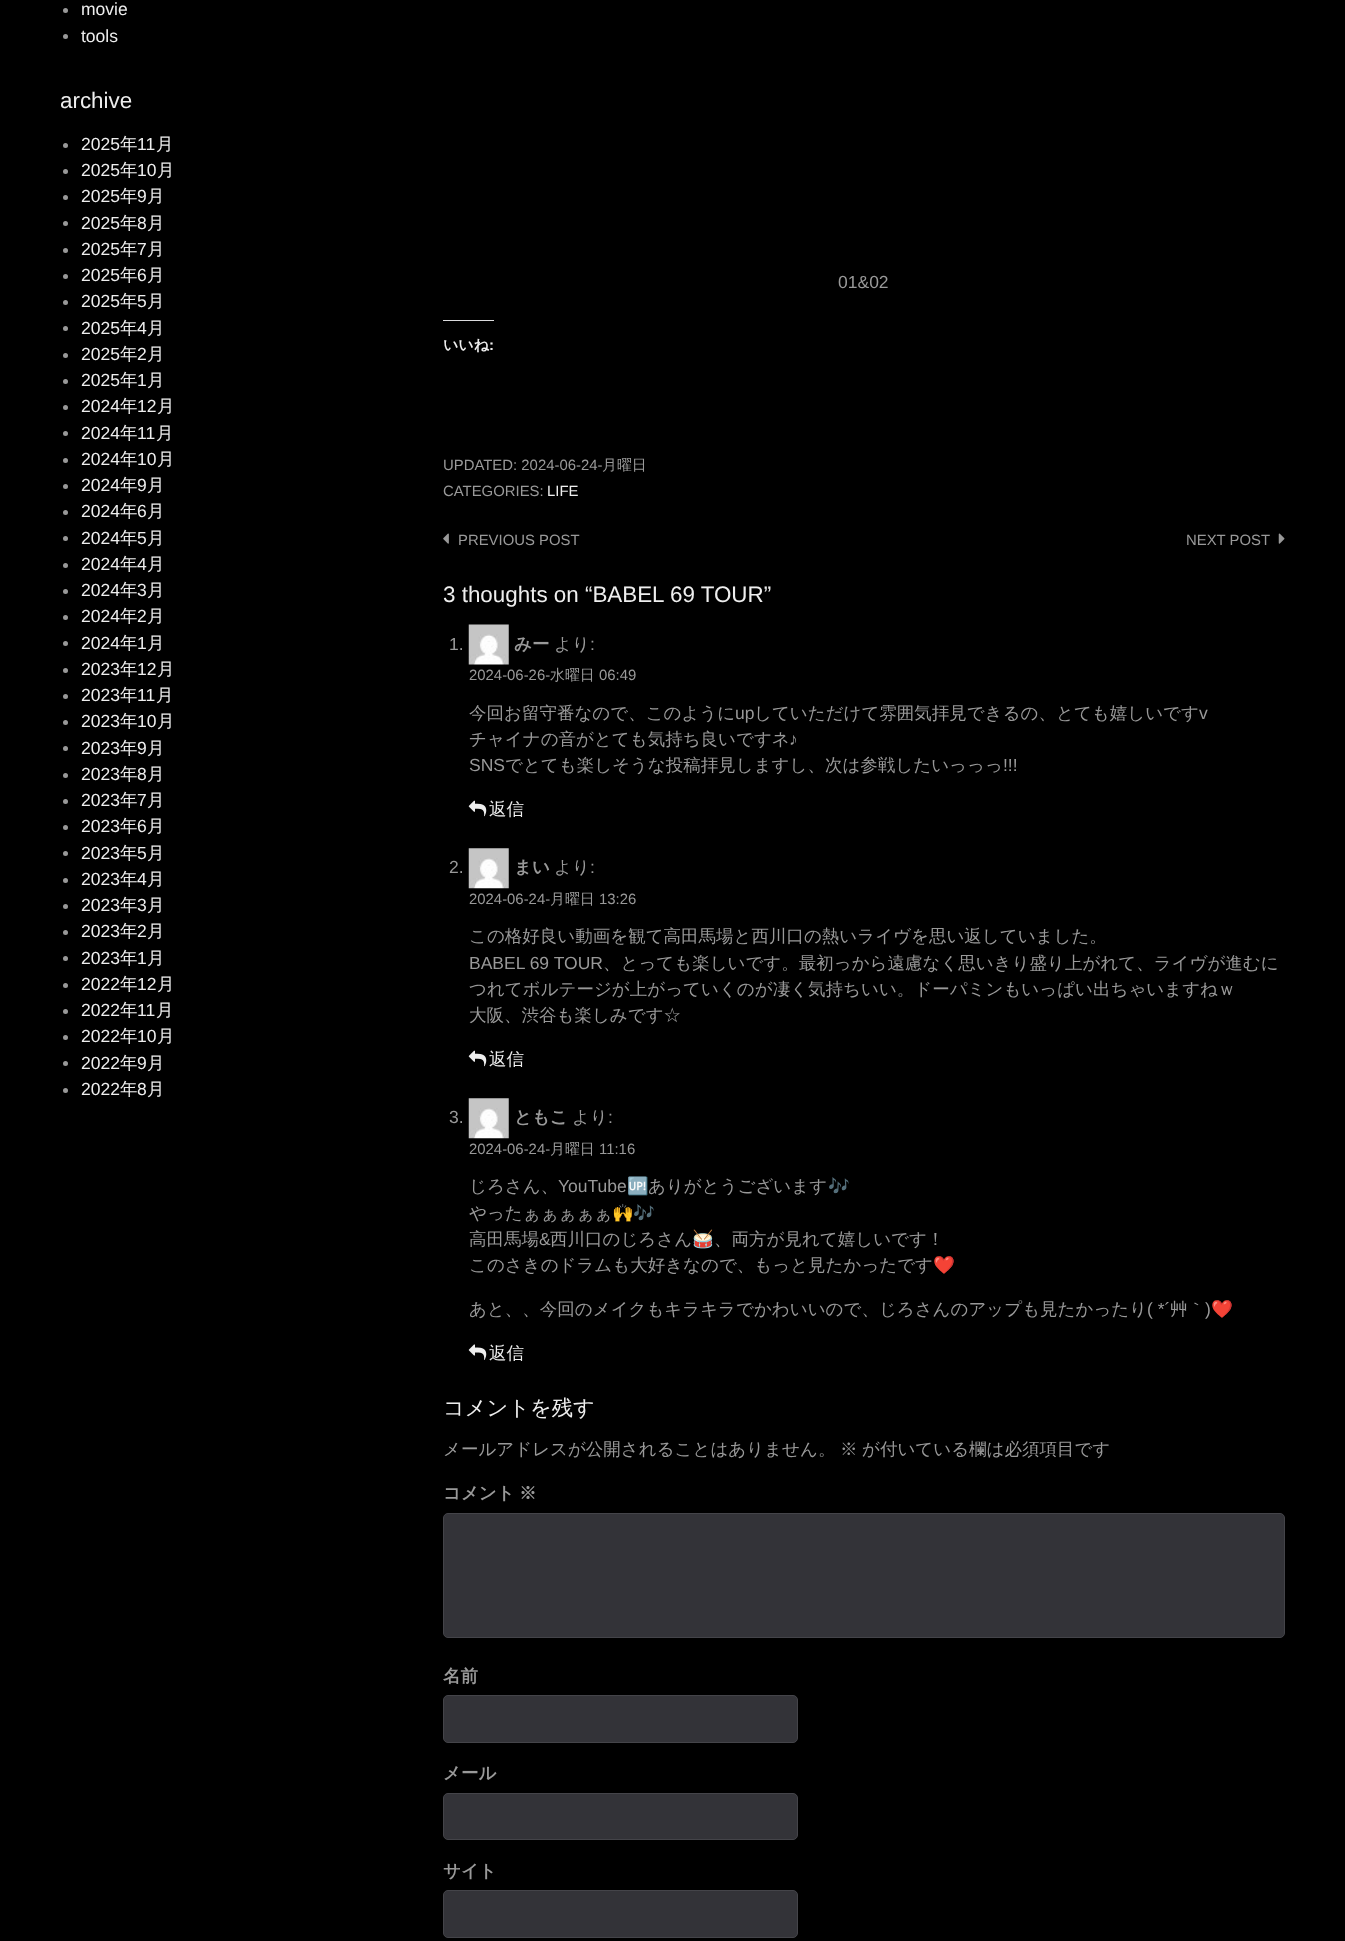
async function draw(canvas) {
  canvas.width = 1345
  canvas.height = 1941
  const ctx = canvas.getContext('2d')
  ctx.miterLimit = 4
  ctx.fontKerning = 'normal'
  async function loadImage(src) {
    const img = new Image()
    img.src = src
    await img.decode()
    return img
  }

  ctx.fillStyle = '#000'
  ctx.fillRect(0, 0, 1345, 1941)
  ctx.fillStyle = '#999'
  ctx.beginPath()
  ctx.arc(65.5, 10.5, 2.5, 0, 2 * Math.PI)
  ctx.fill()
  ctx.font = '17.5px Liberation Sans'
  ctx.fillStyle = '#eee'
  ctx.fillText('movie', 81, 15)
  ctx.fillStyle = '#999'
  ctx.beginPath()
  ctx.arc(65.5, 36.5, 2.5, 0, 2 * Math.PI)
  ctx.fill()
  ctx.fillStyle = '#eee'
  ctx.fillText('tools', 81, 42)
  ctx.font = '22.4px Liberation Sans'
  ctx.fillText('archive', 60, 108)
  ctx.fillStyle = '#999'
  ctx.beginPath()
  ctx.arc(65.5, 145.5, 2.5, 0, 2 * Math.PI)
  ctx.fill()
  ctx.font = '17.5px Liberation Sans'
  ctx.fillStyle = '#eee'
  ctx.fillText('2025', 81, 150)
  ctx.font = '500 17.5px WenQuanYi Zen Hei'
  ctx.fillText('年', 120, 150)
  ctx.font = '17.5px Liberation Sans'
  ctx.fillText('11', 137, 150)
  ctx.font = '500 17.5px WenQuanYi Zen Hei'
  ctx.fillText('月', 156, 150)
  ctx.fillStyle = '#999'
  ctx.beginPath()
  ctx.arc(65.5, 171.5, 2.5, 0, 2 * Math.PI)
  ctx.fill()
  ctx.font = '17.5px Liberation Sans'
  ctx.fillStyle = '#eee'
  ctx.fillText('2025', 81, 176)
  ctx.font = '500 17.5px WenQuanYi Zen Hei'
  ctx.fillText('年', 120, 176)
  ctx.font = '17.5px Liberation Sans'
  ctx.fillText('10', 137, 176)
  ctx.font = '500 17.5px WenQuanYi Zen Hei'
  ctx.fillText('月', 157, 176)
  ctx.fillStyle = '#999'
  ctx.beginPath()
  ctx.arc(65.5, 197.5, 2.5, 0, 2 * Math.PI)
  ctx.fill()
  ctx.font = '17.5px Liberation Sans'
  ctx.fillStyle = '#eee'
  ctx.fillText('2025', 81, 202)
  ctx.font = '500 17.5px WenQuanYi Zen Hei'
  ctx.fillText('年', 120, 202)
  ctx.font = '17.5px Liberation Sans'
  ctx.fillText('9', 137, 202)
  ctx.font = '500 17.5px WenQuanYi Zen Hei'
  ctx.fillText('月', 147, 202)
  ctx.fillStyle = '#999'
  ctx.beginPath()
  ctx.arc(65.5, 223.5, 2.5, 0, 2 * Math.PI)
  ctx.fill()
  ctx.font = '17.5px Liberation Sans'
  ctx.fillStyle = '#eee'
  ctx.fillText('2025', 81, 229)
  ctx.font = '500 17.5px WenQuanYi Zen Hei'
  ctx.fillText('年', 120, 229)
  ctx.font = '17.5px Liberation Sans'
  ctx.fillText('8', 137, 229)
  ctx.font = '500 17.5px WenQuanYi Zen Hei'
  ctx.fillText('月', 147, 229)
  ctx.fillStyle = '#999'
  ctx.beginPath()
  ctx.arc(65.5, 250.5, 2.5, 0, 2 * Math.PI)
  ctx.fill()
  ctx.font = '17.5px Liberation Sans'
  ctx.fillStyle = '#eee'
  ctx.fillText('2025', 81, 255)
  ctx.font = '500 17.5px WenQuanYi Zen Hei'
  ctx.fillText('年', 120, 255)
  ctx.font = '17.5px Liberation Sans'
  ctx.fillText('7', 137, 255)
  ctx.font = '500 17.5px WenQuanYi Zen Hei'
  ctx.fillText('月', 147, 255)
  ctx.fillStyle = '#999'
  ctx.beginPath()
  ctx.arc(65.5, 276.5, 2.5, 0, 2 * Math.PI)
  ctx.fill()
  ctx.font = '17.5px Liberation Sans'
  ctx.fillStyle = '#eee'
  ctx.fillText('2025', 81, 281)
  ctx.font = '500 17.5px WenQuanYi Zen Hei'
  ctx.fillText('年', 120, 281)
  ctx.font = '17.5px Liberation Sans'
  ctx.fillText('6', 137, 281)
  ctx.font = '500 17.5px WenQuanYi Zen Hei'
  ctx.fillText('月', 147, 281)
  ctx.fillStyle = '#999'
  ctx.beginPath()
  ctx.arc(65.5, 302.5, 2.5, 0, 2 * Math.PI)
  ctx.fill()
  ctx.font = '17.5px Liberation Sans'
  ctx.fillStyle = '#eee'
  ctx.fillText('2025', 81, 307)
  ctx.font = '500 17.5px WenQuanYi Zen Hei'
  ctx.fillText('年', 120, 307)
  ctx.font = '17.5px Liberation Sans'
  ctx.fillText('5', 137, 307)
  ctx.font = '500 17.5px WenQuanYi Zen Hei'
  ctx.fillText('月', 147, 307)
  ctx.fillStyle = '#999'
  ctx.beginPath()
  ctx.arc(65.5, 328.5, 2.5, 0, 2 * Math.PI)
  ctx.fill()
  ctx.font = '17.5px Liberation Sans'
  ctx.fillStyle = '#eee'
  ctx.fillText('2025', 81, 334)
  ctx.font = '500 17.5px WenQuanYi Zen Hei'
  ctx.fillText('年', 120, 334)
  ctx.font = '17.5px Liberation Sans'
  ctx.fillText('4', 137, 334)
  ctx.font = '500 17.5px WenQuanYi Zen Hei'
  ctx.fillText('月', 147, 334)
  ctx.fillStyle = '#999'
  ctx.beginPath()
  ctx.arc(65.5, 355.5, 2.5, 0, 2 * Math.PI)
  ctx.fill()
  ctx.font = '17.5px Liberation Sans'
  ctx.fillStyle = '#eee'
  ctx.fillText('2025', 81, 360)
  ctx.font = '500 17.5px WenQuanYi Zen Hei'
  ctx.fillText('年', 120, 360)
  ctx.font = '17.5px Liberation Sans'
  ctx.fillText('2', 137, 360)
  ctx.font = '500 17.5px WenQuanYi Zen Hei'
  ctx.fillText('月', 147, 360)
  ctx.fillStyle = '#999'
  ctx.beginPath()
  ctx.arc(65.5, 381.5, 2.5, 0, 2 * Math.PI)
  ctx.fill()
  ctx.font = '17.5px Liberation Sans'
  ctx.fillStyle = '#eee'
  ctx.fillText('2025', 81, 386)
  ctx.font = '500 17.5px WenQuanYi Zen Hei'
  ctx.fillText('年', 120, 386)
  ctx.font = '17.5px Liberation Sans'
  ctx.fillText('1', 137, 386)
  ctx.font = '500 17.5px WenQuanYi Zen Hei'
  ctx.fillText('月', 147, 386)
  ctx.fillStyle = '#999'
  ctx.beginPath()
  ctx.arc(65.5, 407.5, 2.5, 0, 2 * Math.PI)
  ctx.fill()
  ctx.font = '17.5px Liberation Sans'
  ctx.fillStyle = '#eee'
  ctx.fillText('2024', 81, 412)
  ctx.font = '500 17.5px WenQuanYi Zen Hei'
  ctx.fillText('年', 120, 412)
  ctx.font = '17.5px Liberation Sans'
  ctx.fillText('12', 137, 412)
  ctx.font = '500 17.5px WenQuanYi Zen Hei'
  ctx.fillText('月', 157, 412)
  ctx.fillStyle = '#999'
  ctx.beginPath()
  ctx.arc(65.5, 433.5, 2.5, 0, 2 * Math.PI)
  ctx.fill()
  ctx.font = '17.5px Liberation Sans'
  ctx.fillStyle = '#eee'
  ctx.fillText('2024', 81, 439)
  ctx.font = '500 17.5px WenQuanYi Zen Hei'
  ctx.fillText('年', 120, 439)
  ctx.font = '17.5px Liberation Sans'
  ctx.fillText('11', 137, 439)
  ctx.font = '500 17.5px WenQuanYi Zen Hei'
  ctx.fillText('月', 156, 439)
  ctx.fillStyle = '#999'
  ctx.beginPath()
  ctx.arc(65.5, 460.5, 2.5, 0, 2 * Math.PI)
  ctx.fill()
  ctx.font = '17.5px Liberation Sans'
  ctx.fillStyle = '#eee'
  ctx.fillText('2024', 81, 465)
  ctx.font = '500 17.5px WenQuanYi Zen Hei'
  ctx.fillText('年', 120, 465)
  ctx.font = '17.5px Liberation Sans'
  ctx.fillText('10', 137, 465)
  ctx.font = '500 17.5px WenQuanYi Zen Hei'
  ctx.fillText('月', 157, 465)
  ctx.fillStyle = '#999'
  ctx.beginPath()
  ctx.arc(65.5, 486.5, 2.5, 0, 2 * Math.PI)
  ctx.fill()
  ctx.font = '17.5px Liberation Sans'
  ctx.fillStyle = '#eee'
  ctx.fillText('2024', 81, 491)
  ctx.font = '500 17.5px WenQuanYi Zen Hei'
  ctx.fillText('年', 120, 491)
  ctx.font = '17.5px Liberation Sans'
  ctx.fillText('9', 137, 491)
  ctx.font = '500 17.5px WenQuanYi Zen Hei'
  ctx.fillText('月', 147, 491)
  ctx.fillStyle = '#999'
  ctx.beginPath()
  ctx.arc(65.5, 512.5, 2.5, 0, 2 * Math.PI)
  ctx.fill()
  ctx.font = '17.5px Liberation Sans'
  ctx.fillStyle = '#eee'
  ctx.fillText('2024', 81, 517)
  ctx.font = '500 17.5px WenQuanYi Zen Hei'
  ctx.fillText('年', 120, 517)
  ctx.font = '17.5px Liberation Sans'
  ctx.fillText('6', 137, 517)
  ctx.font = '500 17.5px WenQuanYi Zen Hei'
  ctx.fillText('月', 147, 517)
  ctx.fillStyle = '#999'
  ctx.beginPath()
  ctx.arc(65.5, 538.5, 2.5, 0, 2 * Math.PI)
  ctx.fill()
  ctx.font = '17.5px Liberation Sans'
  ctx.fillStyle = '#eee'
  ctx.fillText('2024', 81, 544)
  ctx.font = '500 17.5px WenQuanYi Zen Hei'
  ctx.fillText('年', 120, 544)
  ctx.font = '17.5px Liberation Sans'
  ctx.fillText('5', 137, 544)
  ctx.font = '500 17.5px WenQuanYi Zen Hei'
  ctx.fillText('月', 147, 544)
  ctx.fillStyle = '#999'
  ctx.beginPath()
  ctx.arc(65.5, 565.5, 2.5, 0, 2 * Math.PI)
  ctx.fill()
  ctx.font = '17.5px Liberation Sans'
  ctx.fillStyle = '#eee'
  ctx.fillText('2024', 81, 570)
  ctx.font = '500 17.5px WenQuanYi Zen Hei'
  ctx.fillText('年', 120, 570)
  ctx.font = '17.5px Liberation Sans'
  ctx.fillText('4', 137, 570)
  ctx.font = '500 17.5px WenQuanYi Zen Hei'
  ctx.fillText('月', 147, 570)
  ctx.fillStyle = '#999'
  ctx.beginPath()
  ctx.arc(65.5, 591.5, 2.5, 0, 2 * Math.PI)
  ctx.fill()
  ctx.font = '17.5px Liberation Sans'
  ctx.fillStyle = '#eee'
  ctx.fillText('2024', 81, 596)
  ctx.font = '500 17.5px WenQuanYi Zen Hei'
  ctx.fillText('年', 120, 596)
  ctx.font = '17.5px Liberation Sans'
  ctx.fillText('3', 137, 596)
  ctx.font = '500 17.5px WenQuanYi Zen Hei'
  ctx.fillText('月', 147, 596)
  ctx.fillStyle = '#999'
  ctx.beginPath()
  ctx.arc(65.5, 617.5, 2.5, 0, 2 * Math.PI)
  ctx.fill()
  ctx.font = '17.5px Liberation Sans'
  ctx.fillStyle = '#eee'
  ctx.fillText('2024', 81, 622)
  ctx.font = '500 17.5px WenQuanYi Zen Hei'
  ctx.fillText('年', 120, 622)
  ctx.font = '17.5px Liberation Sans'
  ctx.fillText('2', 137, 622)
  ctx.font = '500 17.5px WenQuanYi Zen Hei'
  ctx.fillText('月', 147, 622)
  ctx.fillStyle = '#999'
  ctx.beginPath()
  ctx.arc(65.5, 643.5, 2.5, 0, 2 * Math.PI)
  ctx.fill()
  ctx.font = '17.5px Liberation Sans'
  ctx.fillStyle = '#eee'
  ctx.fillText('2024', 81, 649)
  ctx.font = '500 17.5px WenQuanYi Zen Hei'
  ctx.fillText('年', 120, 649)
  ctx.font = '17.5px Liberation Sans'
  ctx.fillText('1', 137, 649)
  ctx.font = '500 17.5px WenQuanYi Zen Hei'
  ctx.fillText('月', 147, 649)
  ctx.fillStyle = '#999'
  ctx.beginPath()
  ctx.arc(65.5, 670.5, 2.5, 0, 2 * Math.PI)
  ctx.fill()
  ctx.font = '17.5px Liberation Sans'
  ctx.fillStyle = '#eee'
  ctx.fillText('2023', 81, 675)
  ctx.font = '500 17.5px WenQuanYi Zen Hei'
  ctx.fillText('年', 120, 675)
  ctx.font = '17.5px Liberation Sans'
  ctx.fillText('12', 137, 675)
  ctx.font = '500 17.5px WenQuanYi Zen Hei'
  ctx.fillText('月', 157, 675)
  ctx.fillStyle = '#999'
  ctx.beginPath()
  ctx.arc(65.5, 696.5, 2.5, 0, 2 * Math.PI)
  ctx.fill()
  ctx.font = '17.5px Liberation Sans'
  ctx.fillStyle = '#eee'
  ctx.fillText('2023', 81, 701)
  ctx.font = '500 17.5px WenQuanYi Zen Hei'
  ctx.fillText('年', 120, 701)
  ctx.font = '17.5px Liberation Sans'
  ctx.fillText('11', 137, 701)
  ctx.font = '500 17.5px WenQuanYi Zen Hei'
  ctx.fillText('月', 156, 701)
  ctx.fillStyle = '#999'
  ctx.beginPath()
  ctx.arc(65.5, 722.5, 2.5, 0, 2 * Math.PI)
  ctx.fill()
  ctx.font = '17.5px Liberation Sans'
  ctx.fillStyle = '#eee'
  ctx.fillText('2023', 81, 727)
  ctx.font = '500 17.5px WenQuanYi Zen Hei'
  ctx.fillText('年', 120, 727)
  ctx.font = '17.5px Liberation Sans'
  ctx.fillText('10', 137, 727)
  ctx.font = '500 17.5px WenQuanYi Zen Hei'
  ctx.fillText('月', 157, 727)
  ctx.fillStyle = '#999'
  ctx.beginPath()
  ctx.arc(65.5, 748.5, 2.5, 0, 2 * Math.PI)
  ctx.fill()
  ctx.font = '17.5px Liberation Sans'
  ctx.fillStyle = '#eee'
  ctx.fillText('2023', 81, 754)
  ctx.font = '500 17.5px WenQuanYi Zen Hei'
  ctx.fillText('年', 120, 754)
  ctx.font = '17.5px Liberation Sans'
  ctx.fillText('9', 137, 754)
  ctx.font = '500 17.5px WenQuanYi Zen Hei'
  ctx.fillText('月', 147, 754)
  ctx.fillStyle = '#999'
  ctx.beginPath()
  ctx.arc(65.5, 775.5, 2.5, 0, 2 * Math.PI)
  ctx.fill()
  ctx.font = '17.5px Liberation Sans'
  ctx.fillStyle = '#eee'
  ctx.fillText('2023', 81, 780)
  ctx.font = '500 17.5px WenQuanYi Zen Hei'
  ctx.fillText('年', 120, 780)
  ctx.font = '17.5px Liberation Sans'
  ctx.fillText('8', 137, 780)
  ctx.font = '500 17.5px WenQuanYi Zen Hei'
  ctx.fillText('月', 147, 780)
  ctx.fillStyle = '#999'
  ctx.beginPath()
  ctx.arc(65.5, 801.5, 2.5, 0, 2 * Math.PI)
  ctx.fill()
  ctx.font = '17.5px Liberation Sans'
  ctx.fillStyle = '#eee'
  ctx.fillText('2023', 81, 806)
  ctx.font = '500 17.5px WenQuanYi Zen Hei'
  ctx.fillText('年', 120, 806)
  ctx.font = '17.5px Liberation Sans'
  ctx.fillText('7', 137, 806)
  ctx.font = '500 17.5px WenQuanYi Zen Hei'
  ctx.fillText('月', 147, 806)
  ctx.fillStyle = '#999'
  ctx.beginPath()
  ctx.arc(65.5, 827.5, 2.5, 0, 2 * Math.PI)
  ctx.fill()
  ctx.font = '17.5px Liberation Sans'
  ctx.fillStyle = '#eee'
  ctx.fillText('2023', 81, 832)
  ctx.font = '500 17.5px WenQuanYi Zen Hei'
  ctx.fillText('年', 120, 832)
  ctx.font = '17.5px Liberation Sans'
  ctx.fillText('6', 137, 832)
  ctx.font = '500 17.5px WenQuanYi Zen Hei'
  ctx.fillText('月', 147, 832)
  ctx.fillStyle = '#999'
  ctx.beginPath()
  ctx.arc(65.5, 853.5, 2.5, 0, 2 * Math.PI)
  ctx.fill()
  ctx.font = '17.5px Liberation Sans'
  ctx.fillStyle = '#eee'
  ctx.fillText('2023', 81, 859)
  ctx.font = '500 17.5px WenQuanYi Zen Hei'
  ctx.fillText('年', 120, 859)
  ctx.font = '17.5px Liberation Sans'
  ctx.fillText('5', 137, 859)
  ctx.font = '500 17.5px WenQuanYi Zen Hei'
  ctx.fillText('月', 147, 859)
  ctx.fillStyle = '#999'
  ctx.beginPath()
  ctx.arc(65.5, 880.5, 2.5, 0, 2 * Math.PI)
  ctx.fill()
  ctx.font = '17.5px Liberation Sans'
  ctx.fillStyle = '#eee'
  ctx.fillText('2023', 81, 885)
  ctx.font = '500 17.5px WenQuanYi Zen Hei'
  ctx.fillText('年', 120, 885)
  ctx.font = '17.5px Liberation Sans'
  ctx.fillText('4', 137, 885)
  ctx.font = '500 17.5px WenQuanYi Zen Hei'
  ctx.fillText('月', 147, 885)
  ctx.fillStyle = '#999'
  ctx.beginPath()
  ctx.arc(65.5, 906.5, 2.5, 0, 2 * Math.PI)
  ctx.fill()
  ctx.font = '17.5px Liberation Sans'
  ctx.fillStyle = '#eee'
  ctx.fillText('2023', 81, 911)
  ctx.font = '500 17.5px WenQuanYi Zen Hei'
  ctx.fillText('年', 120, 911)
  ctx.font = '17.5px Liberation Sans'
  ctx.fillText('3', 137, 911)
  ctx.font = '500 17.5px WenQuanYi Zen Hei'
  ctx.fillText('月', 147, 911)
  ctx.fillStyle = '#999'
  ctx.beginPath()
  ctx.arc(65.5, 932.5, 2.5, 0, 2 * Math.PI)
  ctx.fill()
  ctx.font = '17.5px Liberation Sans'
  ctx.fillStyle = '#eee'
  ctx.fillText('2023', 81, 937)
  ctx.font = '500 17.5px WenQuanYi Zen Hei'
  ctx.fillText('年', 120, 937)
  ctx.font = '17.5px Liberation Sans'
  ctx.fillText('2', 137, 937)
  ctx.font = '500 17.5px WenQuanYi Zen Hei'
  ctx.fillText('月', 147, 937)
  ctx.fillStyle = '#999'
  ctx.beginPath()
  ctx.arc(65.5, 958.5, 2.5, 0, 2 * Math.PI)
  ctx.fill()
  ctx.font = '17.5px Liberation Sans'
  ctx.fillStyle = '#eee'
  ctx.fillText('2023', 81, 964)
  ctx.font = '500 17.5px WenQuanYi Zen Hei'
  ctx.fillText('年', 120, 964)
  ctx.font = '17.5px Liberation Sans'
  ctx.fillText('1', 137, 964)
  ctx.font = '500 17.5px WenQuanYi Zen Hei'
  ctx.fillText('月', 147, 964)
  ctx.fillStyle = '#999'
  ctx.beginPath()
  ctx.arc(65.5, 985.5, 2.5, 0, 2 * Math.PI)
  ctx.fill()
  ctx.font = '17.5px Liberation Sans'
  ctx.fillStyle = '#eee'
  ctx.fillText('2022', 81, 990)
  ctx.font = '500 17.5px WenQuanYi Zen Hei'
  ctx.fillText('年', 120, 990)
  ctx.font = '17.5px Liberation Sans'
  ctx.fillText('12', 137, 990)
  ctx.font = '500 17.5px WenQuanYi Zen Hei'
  ctx.fillText('月', 157, 990)
  ctx.fillStyle = '#999'
  ctx.beginPath()
  ctx.arc(65.5, 1011.5, 2.5, 0, 2 * Math.PI)
  ctx.fill()
  ctx.font = '17.5px Liberation Sans'
  ctx.fillStyle = '#eee'
  ctx.fillText('2022', 81, 1016)
  ctx.font = '500 17.5px WenQuanYi Zen Hei'
  ctx.fillText('年', 120, 1016)
  ctx.font = '17.5px Liberation Sans'
  ctx.fillText('11', 137, 1016)
  ctx.font = '500 17.5px WenQuanYi Zen Hei'
  ctx.fillText('月', 156, 1016)
  ctx.fillStyle = '#999'
  ctx.beginPath()
  ctx.arc(65.5, 1037.5, 2.5, 0, 2 * Math.PI)
  ctx.fill()
  ctx.font = '17.5px Liberation Sans'
  ctx.fillStyle = '#eee'
  ctx.fillText('2022', 81, 1042)
  ctx.font = '500 17.5px WenQuanYi Zen Hei'
  ctx.fillText('年', 120, 1042)
  ctx.font = '17.5px Liberation Sans'
  ctx.fillText('10', 137, 1042)
  ctx.font = '500 17.5px WenQuanYi Zen Hei'
  ctx.fillText('月', 157, 1042)
  ctx.fillStyle = '#999'
  ctx.beginPath()
  ctx.arc(65.5, 1063.5, 2.5, 0, 2 * Math.PI)
  ctx.fill()
  ctx.font = '17.5px Liberation Sans'
  ctx.fillStyle = '#eee'
  ctx.fillText('2022', 81, 1069)
  ctx.font = '500 17.5px WenQuanYi Zen Hei'
  ctx.fillText('年', 120, 1069)
  ctx.font = '17.5px Liberation Sans'
  ctx.fillText('9', 137, 1069)
  ctx.font = '500 17.5px WenQuanYi Zen Hei'
  ctx.fillText('月', 147, 1069)
  ctx.fillStyle = '#999'
  ctx.beginPath()
  ctx.arc(65.5, 1090.5, 2.5, 0, 2 * Math.PI)
  ctx.fill()
  ctx.font = '17.5px Liberation Sans'
  ctx.fillStyle = '#eee'
  ctx.fillText('2022', 81, 1095)
  ctx.font = '500 17.5px WenQuanYi Zen Hei'
  ctx.fillText('年', 120, 1095)
  ctx.font = '17.5px Liberation Sans'
  ctx.fillText('8', 137, 1095)
  ctx.font = '500 17.5px WenQuanYi Zen Hei'
  ctx.fillText('月', 147, 1095)
  ctx.font = '17.5px Liberation Sans'
  ctx.fillStyle = '#999'
  ctx.fillText('01&02', 838, 288)
  ctx.fillStyle = '#dcdcde'
  ctx.fillRect(443, 320, 51, 1)
  ctx.font = 'bold 15px WenQuanYi Zen Hei'
  ctx.fillStyle = '#eee'
  ctx.fillText('いいね', 443, 350)
  ctx.font = 'bold 15px Liberation Sans'
  ctx.fillText(':', 489, 350)
  ctx.font = '14.9px Liberation Sans'
  ctx.fillStyle = '#999'
  ctx.fillText('UPDATED: 2024-06-24-', 443, 470)
  ctx.font = '500 14.9px WenQuanYi Zen Hei'
  ctx.fillText('月曜日', 602, 470)
  ctx.font = '14.9px Liberation Sans'
  ctx.fillText('CATEGORIES:', 443, 496)
  ctx.fillStyle = '#eee'
  ctx.fillText('LIFE', 547, 496)
  ctx.drawImage(await loadImage('image0.png'), 443, 533, 6, 11)
  ctx.fillStyle = '#999'
  ctx.fillText('PREVIOUS POST', 458, 545)
  ctx.fillText('NEXT POST', 1186, 545)
  ctx.drawImage(await loadImage('image1.png'), 1278, 533, 7, 11)
  ctx.font = '22.4px Liberation Sans'
  ctx.fillStyle = '#eee'
  ctx.fillText('3 thoughts on “BABEL 69 TOUR”', 443, 602)
  ctx.font = '17.5px Liberation Sans'
  ctx.fillStyle = '#999'
  ctx.fillText('1.', 449, 650)
  ctx.drawImage(await loadImage('image2.png'), 468, 624, 41, 41)
  ctx.font = 'bold 17.5px WenQuanYi Zen Hei'
  ctx.fillText('みー', 514, 650)
  ctx.font = '500 17.5px WenQuanYi Zen Hei'
  ctx.fillText('より', 554, 650)
  ctx.font = '17.5px Liberation Sans'
  ctx.fillText(':', 590, 650)
  ctx.font = '14.9px Liberation Sans'
  ctx.fillText('2024-06-26-', 469, 680)
  ctx.font = '500 14.9px WenQuanYi Zen Hei'
  ctx.fillText('水曜日', 550, 680)
  ctx.font = '14.9px Liberation Sans'
  ctx.fillText('06:49', 599, 680)
  ctx.font = '500 17.5px WenQuanYi Zen Hei'
  ctx.fillText('今回お留守番なので、このように', 469, 719)
  ctx.font = '17.5px Liberation Sans'
  ctx.fillText('up', 735, 719)
  ctx.font = '500 17.5px WenQuanYi Zen Hei'
  ctx.fillText('していただけて雰囲気拝見できるの、とても嬉しいです', 754, 719)
  ctx.font = '17.5px Liberation Sans'
  ctx.fillText('v', 1199, 719)
  ctx.font = '500 17.5px WenQuanYi Zen Hei'
  ctx.fillText('チャイナの音がとても気持ち良いですネ', 469, 745)
  ctx.font = '17.5px Liberation Sans'
  ctx.fillText('♪', 789, 745)
  ctx.fillText('SNS', 469, 771)
  ctx.font = '500 17.5px WenQuanYi Zen Hei'
  ctx.fillText('でとても楽しそうな投稿拝見しますし、次は参戦したいっっっ', 505, 771)
  ctx.font = '17.5px Liberation Sans'
  ctx.fillText('!!!', 1003, 771)
  ctx.drawImage(await loadImage('image3.png'), 468, 800, 19, 17)
  ctx.font = '500 17.5px WenQuanYi Zen Hei'
  ctx.fillStyle = '#eee'
  ctx.fillText('返信', 489, 815)
  ctx.font = '17.5px Liberation Sans'
  ctx.fillStyle = '#999'
  ctx.fillText('2.', 449, 873)
  ctx.drawImage(await loadImage('image4.png'), 468, 848, 41, 41)
  ctx.font = 'bold 17.5px WenQuanYi Zen Hei'
  ctx.fillText('まい', 514, 873)
  ctx.font = '500 17.5px WenQuanYi Zen Hei'
  ctx.fillText('より', 554, 873)
  ctx.font = '17.5px Liberation Sans'
  ctx.fillText(':', 590, 873)
  ctx.font = '14.9px Liberation Sans'
  ctx.fillText('2024-06-24-', 469, 904)
  ctx.font = '500 14.9px WenQuanYi Zen Hei'
  ctx.fillText('月曜日', 550, 904)
  ctx.font = '14.9px Liberation Sans'
  ctx.fillText('13:26', 599, 904)
  ctx.font = '500 17.5px WenQuanYi Zen Hei'
  ctx.fillText('この格好良い動画を観て高田馬場と西川口の熱いライヴを思い返していました。', 469, 942)
  ctx.font = '17.5px Liberation Sans'
  ctx.fillText('BABEL 69 TOUR', 469, 969)
  ctx.font = '500 17.5px WenQuanYi Zen Hei'
  ctx.fillText('、とっても楽しいです。最初っから遠慮なく思いきり盛り上がれて、ライヴが進むに', 603, 969)
  ctx.fillText('つれてボルテージが上がっていくのが凄く気持ちいい。ドーパミンもいっぱい出ちゃいますねｗ', 469, 995)
  ctx.fillText('大阪、渋谷も楽しみです☆', 469, 1021)
  ctx.drawImage(await loadImage('image3.png'), 468, 1050, 19, 17)
  ctx.fillStyle = '#eee'
  ctx.fillText('返信', 489, 1065)
  ctx.font = '17.5px Liberation Sans'
  ctx.fillStyle = '#999'
  ctx.fillText('3.', 449, 1123)
  ctx.drawImage(await loadImage('image4.png'), 468, 1098, 41, 41)
  ctx.font = 'bold 17.5px WenQuanYi Zen Hei'
  ctx.fillText('ともこ', 514, 1123)
  ctx.font = '500 17.5px WenQuanYi Zen Hei'
  ctx.fillText('より', 572, 1123)
  ctx.font = '17.5px Liberation Sans'
  ctx.fillText(':', 608, 1123)
  ctx.font = '14.9px Liberation Sans'
  ctx.fillText('2024-06-24-', 469, 1154)
  ctx.font = '500 14.9px WenQuanYi Zen Hei'
  ctx.fillText('月曜日', 550, 1154)
  ctx.font = '14.9px Liberation Sans'
  ctx.fillText('11:16', 599, 1154)
  ctx.font = '500 17.5px WenQuanYi Zen Hei'
  ctx.fillText('じろさん、', 469, 1192)
  ctx.font = '17.5px Liberation Sans'
  ctx.fillText('YouTube', 558, 1192)
  ctx.font = '17.5px Noto Color Emoji'
  ctx.fillText('🆙', 627, 1192)
  ctx.font = '500 17.5px WenQuanYi Zen Hei'
  ctx.fillText('ありがとうございます', 648, 1192)
  ctx.font = '17.5px Noto Color Emoji'
  ctx.fillText('🎶', 828, 1192)
  ctx.font = '500 17.5px WenQuanYi Zen Hei'
  ctx.fillText('やったぁぁぁぁぁ', 469, 1219)
  ctx.font = '17.5px Noto Color Emoji'
  ctx.fillText('🙌🎶', 612, 1219)
  ctx.font = '500 17.5px WenQuanYi Zen Hei'
  ctx.fillText('高田馬場', 469, 1245)
  ctx.font = '17.5px Liberation Sans'
  ctx.fillText('&', 539, 1245)
  ctx.font = '500 17.5px WenQuanYi Zen Hei'
  ctx.fillText('西川口のじろさん', 550, 1245)
  ctx.font = '17.5px Noto Color Emoji'
  ctx.fillText('🥁', 692, 1245)
  ctx.font = '500 17.5px WenQuanYi Zen Hei'
  ctx.fillText('、両方が見れて嬉しいです！', 714, 1245)
  ctx.fillText('このさきのドラムも大好きなので、もっと見たかったです', 469, 1271)
  ctx.font = '17.5px Noto Color Emoji'
  ctx.fillText('❤️', 933, 1271)
  ctx.font = '500 17.5px WenQuanYi Zen Hei'
  ctx.fillText('あと、、今回のメイクもキラキラでかわいいので、じろさんのアップも見たかったり', 469, 1315)
  ctx.font = '17.5px Liberation Sans'
  ctx.fillText('( *´', 1147, 1315)
  ctx.font = '500 17.5px WenQuanYi Zen Hei'
  ctx.fillText('艸｀', 1170, 1315)
  ctx.font = '17.5px Liberation Sans'
  ctx.fillText(')', 1205, 1315)
  ctx.font = '17.5px Noto Color Emoji'
  ctx.fillText('❤️', 1211, 1315)
  ctx.drawImage(await loadImage('image5.png'), 468, 1344, 19, 16)
  ctx.font = '500 17.5px WenQuanYi Zen Hei'
  ctx.fillStyle = '#eee'
  ctx.fillText('返信', 489, 1359)
  ctx.font = '500 21.25px WenQuanYi Zen Hei'
  ctx.fillText('コメントを残す', 443, 1415)
  ctx.font = '500 17.5px WenQuanYi Zen Hei'
  ctx.fillStyle = '#999'
  ctx.fillText('メールアドレスが公開されることはありません。', 443, 1455)
  ctx.fillText('※', 840, 1455)
  ctx.fillText('が付いている欄は必須項目です', 862, 1455)
  ctx.font = 'bold 17.5px WenQuanYi Zen Hei'
  ctx.fillText('コメント', 443, 1499)
  ctx.fillText('※', 519, 1499)
  ctx.fillStyle = '#333338'
  ctx.beginPath()
  ctx.roundRect(443.5, 1513.5, 841, 124, 4.5)
  ctx.fill()
  ctx.strokeStyle = '#444449'
  ctx.stroke()
  ctx.fillStyle = '#999'
  ctx.fillText('名前', 443, 1682)
  ctx.fillStyle = '#333338'
  ctx.beginPath()
  ctx.roundRect(443.5, 1695.5, 354, 47, 4.5)
  ctx.fill()
  ctx.stroke()
  ctx.fillStyle = '#999'
  ctx.fillText('メール', 443, 1779)
  ctx.fillStyle = '#333338'
  ctx.beginPath()
  ctx.roundRect(443.5, 1793.5, 354, 46, 4.5)
  ctx.fill()
  ctx.stroke()
  ctx.fillStyle = '#999'
  ctx.fillText('サイト', 443, 1877)
  ctx.fillStyle = '#333338'
  ctx.beginPath()
  ctx.roundRect(443.5, 1890.5, 354, 47, 4.5)
  ctx.fill()
  ctx.stroke()
}

draw(document.querySelector('canvas'))
